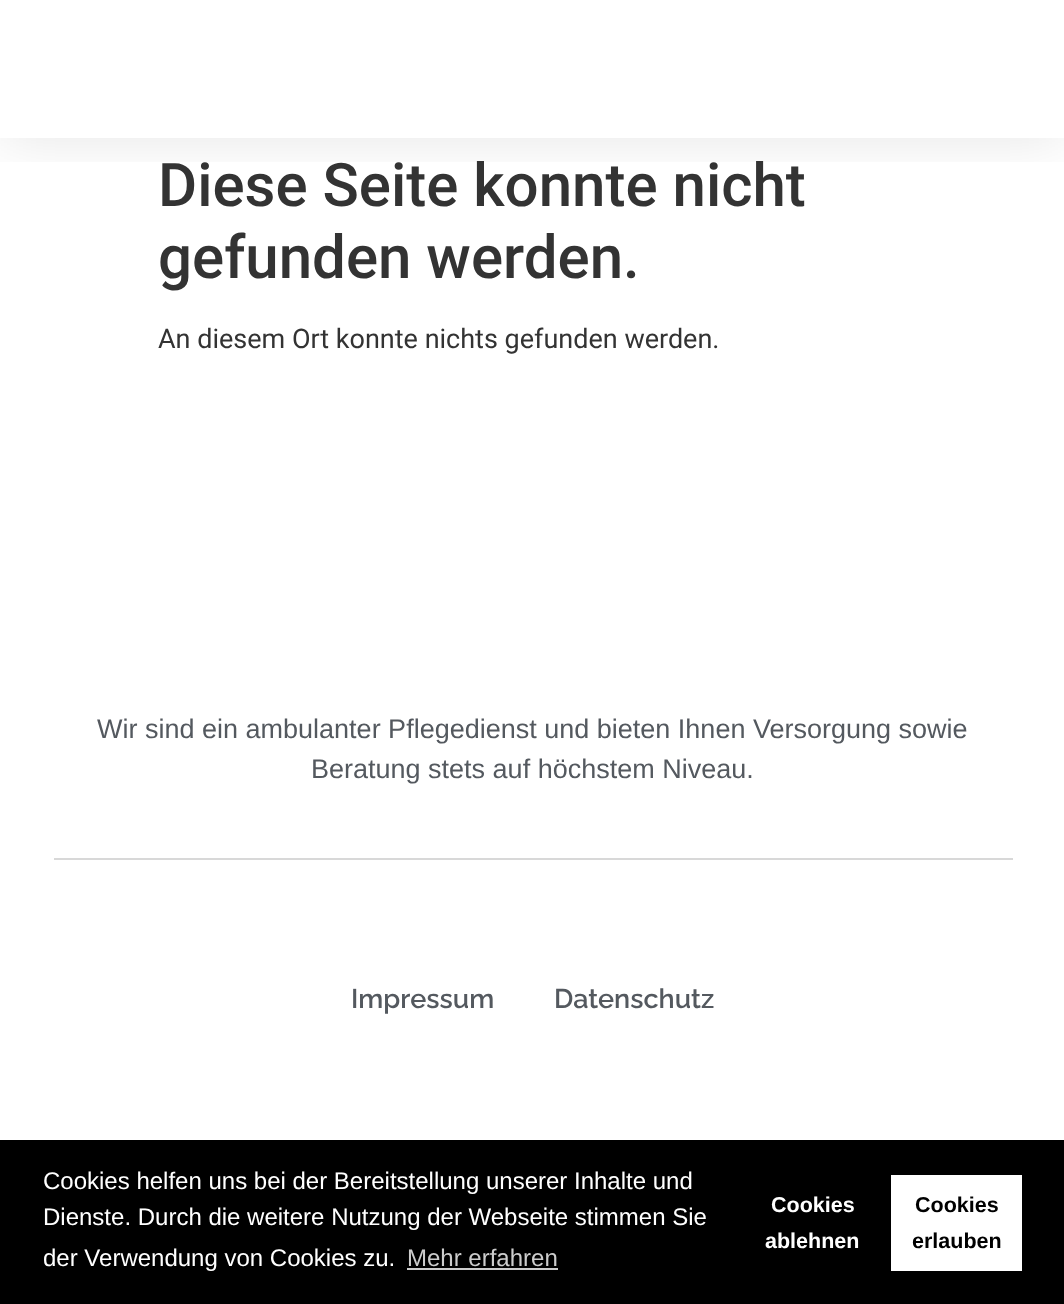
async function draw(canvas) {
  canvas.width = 1064
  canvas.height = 1304
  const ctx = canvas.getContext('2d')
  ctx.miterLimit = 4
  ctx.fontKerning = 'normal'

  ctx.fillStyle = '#fff'
  ctx.fillRect(0, 0, 1064, 1304)
  ctx.save()
  ctx.beginPath()
  ctx.rect(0, 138, 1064, 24)
  ctx.clip()
  ctx.fillStyle = '#0000001a'
  ctx.filter = 'blur(28.5px)'
  ctx.beginPath()
  ctx.rect(0, 0, 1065, 138)
  ctx.fill()
  ctx.filter = 'none'
  ctx.restore()
  ctx.font = '500 60px Roboto'
  ctx.fillStyle = '#333'
  ctx.fillText('Diese Seite konnte nicht', 158, 206)
  ctx.fillText('gefunden werden.', 158, 278)
  ctx.font = '27px Roboto'
  ctx.fillText('An diesem Ort konnte nichts gefunden werden.', 158, 348)
  ctx.font = '27px Liberation Sans'
  ctx.fillStyle = '#54595f'
  ctx.fillText('Wir sind ein ambulanter Pflegedienst und bieten Ihnen Versorgung sowie', 97, 738)
  ctx.fillText('Beratung stets auf höchstem Niveau.', 311, 778)
  ctx.fillStyle = '#d8d8d8'
  ctx.fillRect(54, 858, 959, 2)
  ctx.font = '600 27px Raleway'
  ctx.fillStyle = '#54595f'
  ctx.fillText('Impressum', 351, 1008)
  ctx.fillText('Datenschutz', 554, 1008)
  ctx.fillStyle = '#000'
  ctx.fillRect(0, 1140, 1064, 164)
  ctx.font = '24px Liberation Sans'
  ctx.fillStyle = '#fff'
  ctx.fillText('Cookies helfen uns bei der Bereitstellung unserer Inhalte und', 43, 1189)
  ctx.fillText('Dienste. Durch die weitere Nutzung der Webseite stimmen Sie', 43, 1225)
  ctx.fillText('der Verwendung von Cookies zu.', 43, 1266)
  ctx.fillStyle = '#ccc'
  ctx.fillText('Mehr erfahren', 407, 1266)
  ctx.fillRect(407, 1268, 151, 2)
  ctx.font = 'bold 21.5px Liberation Sans'
  ctx.fillStyle = '#fff'
  ctx.fillText('Cookies', 771, 1212)
  ctx.fillText('ablehnen', 765, 1248)
  ctx.fillRect(891, 1175, 131, 96)
  ctx.fillStyle = '#000'
  ctx.fillText('Cookies', 915, 1212)
  ctx.fillText('erlauben', 912, 1248)
}

draw(document.querySelector('canvas'))
